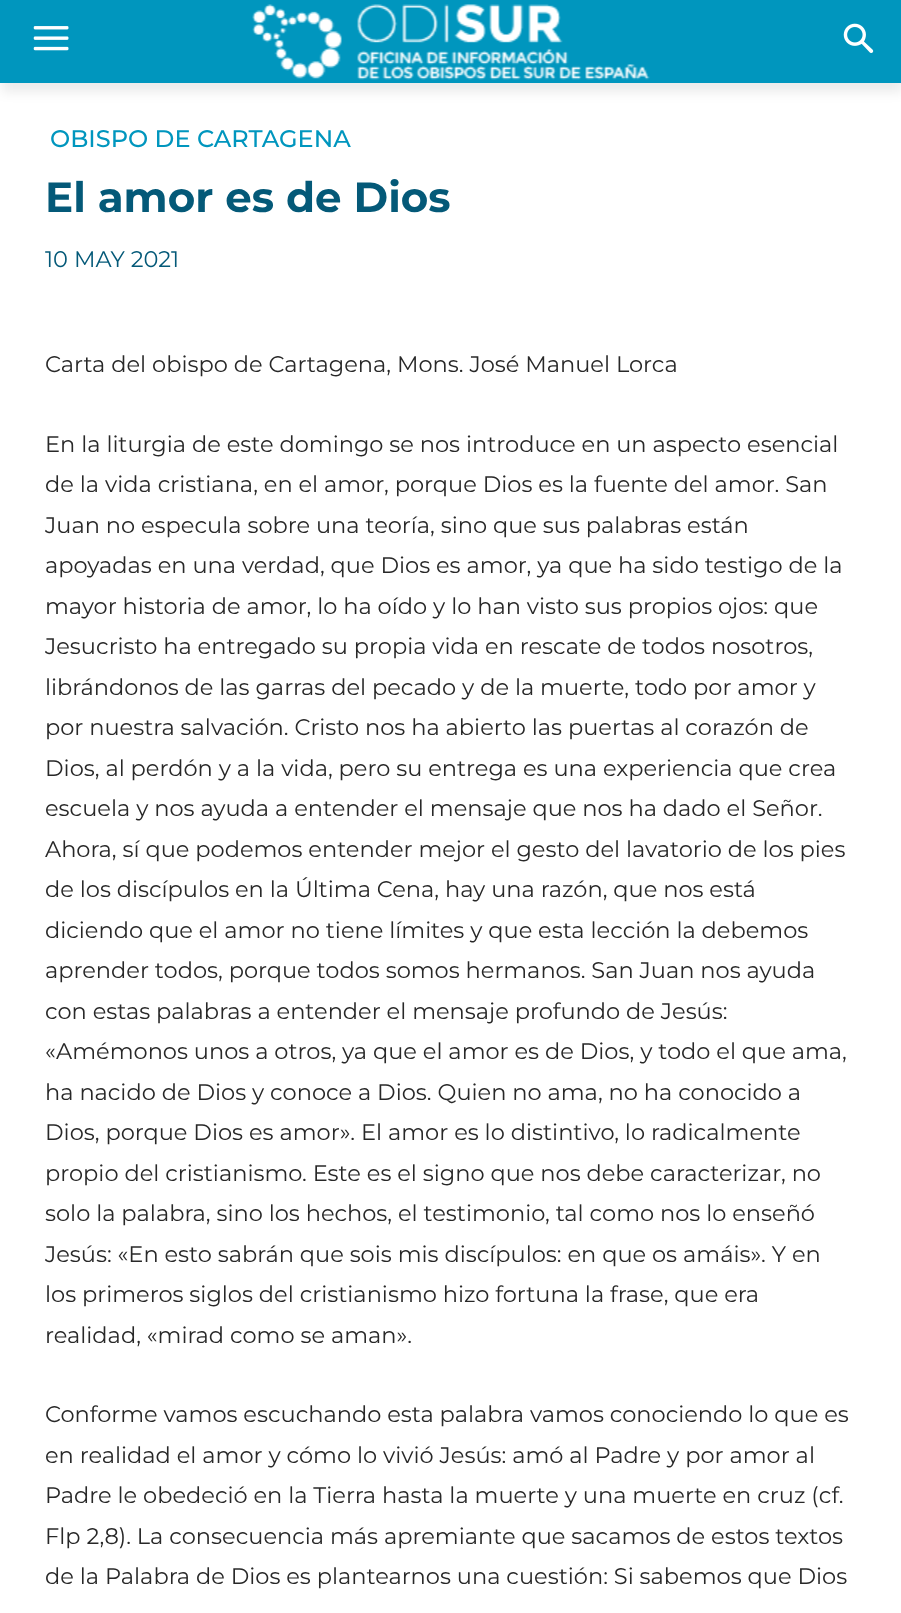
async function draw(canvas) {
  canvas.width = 901
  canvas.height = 1613
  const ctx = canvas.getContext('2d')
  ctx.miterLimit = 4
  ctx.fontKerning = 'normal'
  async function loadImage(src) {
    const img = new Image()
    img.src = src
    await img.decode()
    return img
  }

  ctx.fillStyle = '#fff'
  ctx.fillRect(0, 0, 901, 1613)
  ctx.fillStyle = '#00000014'
  ctx.filter = 'blur(6px)'
  ctx.beginPath()
  ctx.rect(2, 9, 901, 83)
  ctx.fill()
  ctx.filter = 'none'
  ctx.fillStyle = '#0096be'
  ctx.fillRect(0, 0, 901, 83)
  ctx.drawImage(await loadImage('image0.png'), 33, 26, 36, 25)
  ctx.drawImage(await loadImage('image1.png'), 252, 4, 398, 76)
  ctx.drawImage(await loadImage('image2.png'), 843, 23, 31, 30)
  ctx.font = '500 24px Montserrat'
  ctx.fillText('OBISPO DE CARTAGENA', 50, 147)
  ctx.font = 'bold 42px Montserrat'
  ctx.fillStyle = '#045978'
  ctx.fillText('El amor es de Dios', 45, 212)
  ctx.font = '22.5px Montserrat'
  ctx.fillText('10 MAY 2021', 45, 267)
  ctx.fillStyle = '#282828'
  ctx.fillText('Carta del obispo de Cartagena, Mons. José Manuel Lorca', 45, 372)
  ctx.fillText('En la liturgia de este domingo se nos introduce en un aspecto esencial', 45, 452)
  ctx.fillText('de la vida cristiana, en el amor, porque Dios es la fuente del amor. San', 45, 492)
  ctx.fillText('Juan no especula sobre una teoría, sino que sus palabras están', 45, 533)
  ctx.fillText('apoyadas en una verdad, que Dios es amor, ya que ha sido testigo de la', 45, 573)
  ctx.fillText('mayor historia de amor, lo ha oído y lo han visto sus propios ojos: que', 45, 614)
  ctx.fillText('Jesucristo ha entregado su propia vida en rescate de todos nosotros,', 45, 654)
  ctx.fillText('librándonos de las garras del pecado y de la muerte, todo por amor y', 45, 695)
  ctx.fillText('por nuestra salvación. Cristo nos ha abierto las puertas al corazón de', 45, 735)
  ctx.fillText('Dios, al perdón y a la vida, pero su entrega es una experiencia que crea', 45, 776)
  ctx.fillText('escuela y nos ayuda a entender el mensaje que nos ha dado el Señor.', 45, 816)
  ctx.fillText('Ahora, sí que podemos entender mejor el gesto del lavatorio de los pies', 45, 857)
  ctx.fillText('de los discípulos en la Última Cena, hay una razón, que nos está', 45, 897)
  ctx.fillText('diciendo que el amor no tiene límites y que esta lección la debemos', 45, 938)
  ctx.fillText('aprender todos, porque todos somos hermanos. San Juan nos ayuda', 45, 978)
  ctx.fillText('con estas palabras a entender el mensaje profundo de Jesús:', 45, 1019)
  ctx.fillText('«Amémonos unos a otros, ya que el amor es de Dios, y todo el que ama,', 45, 1059)
  ctx.fillText('ha nacido de Dios y conoce a Dios. Quien no ama, no ha conocido a', 45, 1100)
  ctx.fillText('Dios, porque Dios es amor». El amor es lo distintivo, lo radicalmente', 45, 1140)
  ctx.fillText('propio del cristianismo. Este es el signo que nos debe caracterizar, no', 45, 1181)
  ctx.fillText('solo la palabra, sino los hechos, el testimonio, tal como nos lo enseñó', 45, 1221)
  ctx.fillText('Jesús: «En esto sabrán que sois mis discípulos: en que os amáis». Y en', 45, 1262)
  ctx.fillText('los primeros siglos del cristianismo hizo fortuna la frase, que era', 45, 1302)
  ctx.fillText('realidad, «mirad como se aman».', 45, 1343)
  ctx.fillText('Conforme vamos escuchando esta palabra vamos conociendo lo que es', 45, 1422)
  ctx.fillText('en realidad el amor y cómo lo vivió Jesús: amó al Padre y por amor al', 45, 1463)
  ctx.fillText('Padre le obedeció en la Tierra hasta la muerte y una muerte en cruz (cf.', 45, 1503)
  ctx.fillText('Flp 2,8). La consecuencia más apremiante que sacamos de estos textos', 45, 1544)
  ctx.fillText('de la Palabra de Dios es plantearnos una cuestión: Si sabemos que Dios', 45, 1584)
}

draw(document.querySelector('canvas'))
